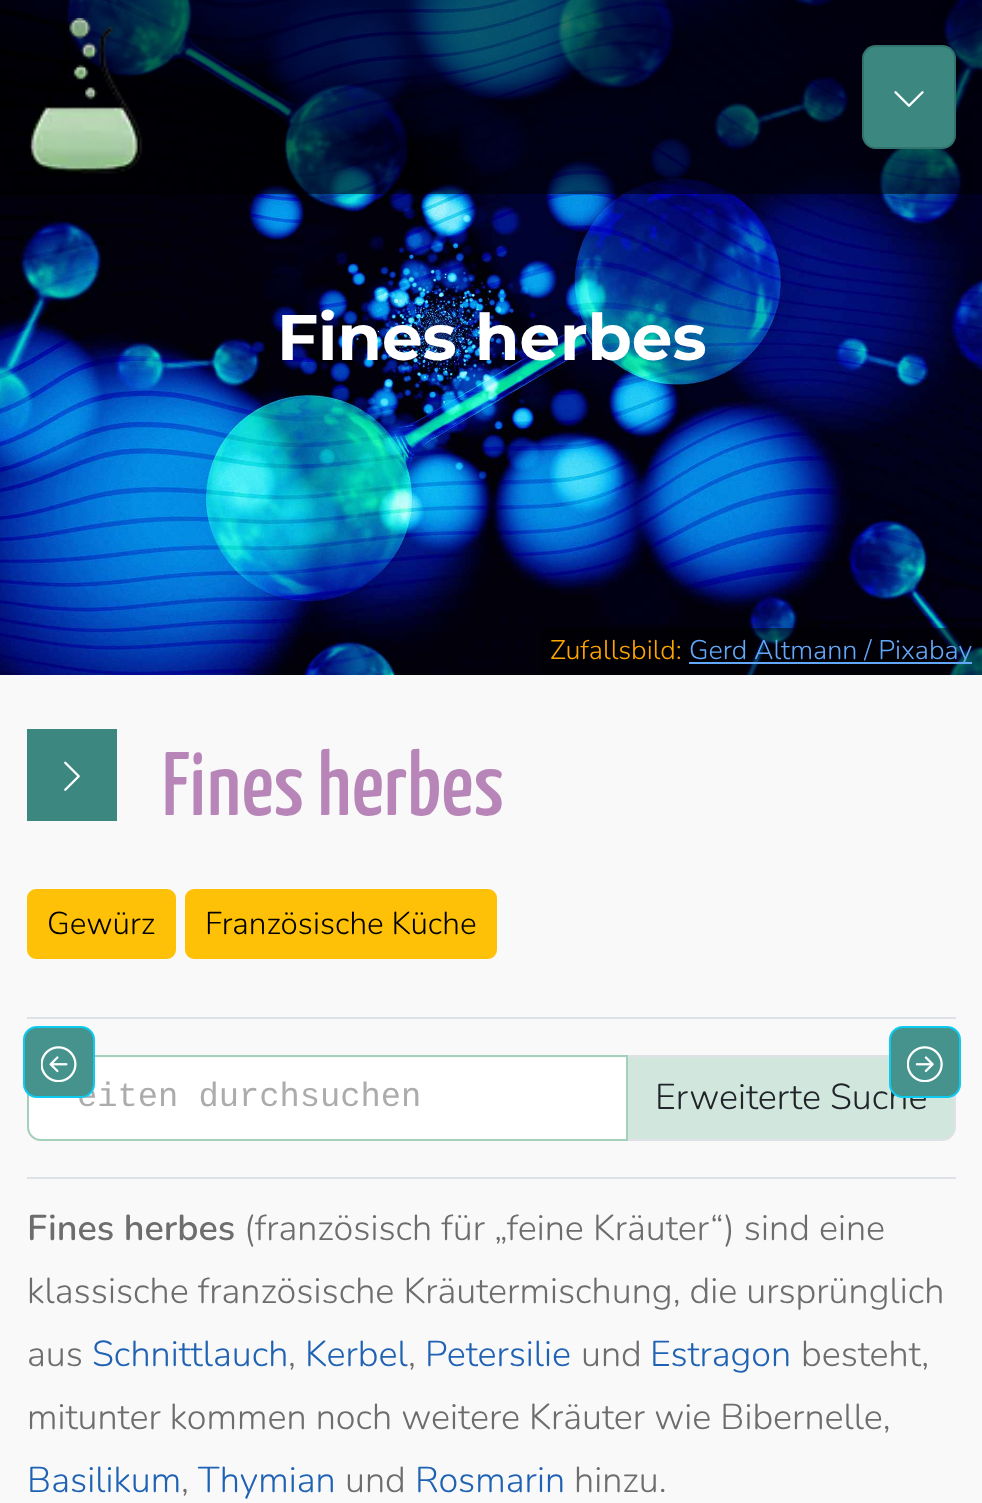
async function draw(canvas) {
  canvas.width = 982
  canvas.height = 1503
  const ctx = canvas.getContext('2d')
  ctx.miterLimit = 4
  ctx.fontKerning = 'normal'
  async function loadImage(src) {
    const img = new Image()
    img.src = src
    await img.decode()
    return img
  }

  ctx.fillStyle = '#f9f9f9'
  ctx.fillRect(0, 0, 982, 1503)
  ctx.drawImage(await loadImage('image2.png'), 0, 0, 982, 675)
  ctx.fillStyle = '#0000008c'
  ctx.fillRect(0, 0, 982, 194)
  ctx.drawImage(await loadImage('image0.png'), 29, 18, 114, 156)
  ctx.fillStyle = '#3c8881'
  ctx.beginPath()
  ctx.roundRect(862, 45, 94, 104, 14)
  ctx.fill()
  ctx.beginPath()
  ctx.roundRect(863, 46, 92, 102, 13)
  ctx.strokeStyle = '#00000026'
  ctx.lineWidth = 2
  ctx.stroke()
  ctx.drawImage(await loadImage('image1.png'), 894, 91, 30, 16)
  ctx.font = 'bold 64.25px Montserrat'
  ctx.fillStyle = '#fff'
  ctx.fillText('Fines herbes', 277, 360)
  ctx.fillStyle = '#00000080'
  ctx.fillRect(542, 628, 440, 47)
  ctx.font = '300 27px Nunito'
  ctx.fillStyle = '#ffa500'
  ctx.fillText('Zufallsbild:', 550, 659)
  ctx.fillStyle = '#63a8f8'
  ctx.fillRect(689, 662, 283, 2)
  ctx.fillText('Gerd Altmann / Pixabay', 689, 659)
  ctx.fillStyle = '#3c8881'
  ctx.fillRect(27, 729, 90, 92)
  ctx.drawImage(await loadImage('image3.png'), 64, 761, 16, 30)
  ctx.font = '500 90px Yanone Kaffeesatz'
  ctx.fillStyle = '#b885b8'
  ctx.fillText('Fines herbes', 162, 815)
  ctx.fillStyle = '#dee2e6'
  ctx.fillRect(27, 1017, 929, 2)
  ctx.fillStyle = '#ffc107'
  ctx.beginPath()
  ctx.roundRect(28, 890, 147, 68, 8)
  ctx.fill()
  ctx.strokeStyle = '#ffc107'
  ctx.stroke()
  ctx.font = '300 31.5px Nunito'
  ctx.fillStyle = '#000'
  ctx.fillText('Gewürz', 47, 934)
  ctx.fillStyle = '#ffc107'
  ctx.beginPath()
  ctx.roundRect(186, 890, 310, 68, 8)
  ctx.fill()
  ctx.stroke()
  ctx.fillStyle = '#000'
  ctx.fillText('Französische Küche', 205, 934)
  ctx.fillStyle = '#fff'
  ctx.beginPath()
  ctx.roundRect(29, 1058, 597, 81, [11, 0, 0, 11])
  ctx.fill()
  ctx.fillStyle = '#d1e7dd'
  ctx.beginPath()
  ctx.roundRect(627, 1056, 328, 84, [0, 13, 13, 0])
  ctx.fill()
  ctx.strokeStyle = '#dee2e6'
  ctx.stroke()
  ctx.beginPath()
  ctx.roundRect(28, 1056, 599, 84, [13, 0, 0, 13])
  ctx.strokeStyle = '#a3cfbb'
  ctx.stroke()
  ctx.font = '33.75px Liberation Mono'
  ctx.fillStyle = '#acacac'
  ctx.fillText('eiten durchsuchen', 77, 1106)
  ctx.font = '300 36px Nunito'
  ctx.fillStyle = '#212529'
  ctx.fillText('Erweiterte Suche', 655, 1109)
  ctx.fillStyle = '#dee2e6'
  ctx.fillRect(27, 1177, 929, 2)
  ctx.font = '600 36px Nunito'
  ctx.fillStyle = '#6d6d6d'
  ctx.fillText('Fines herbes', 27, 1240)
  ctx.font = '300 36px Nunito'
  ctx.fillText('(französisch für „feine Kräuter“) sind eine', 244, 1240)
  ctx.fillText('klassische französische Kräutermischung, die ursprünglich', 27, 1303)
  ctx.fillText('aus', 27, 1366)
  ctx.fillStyle = '#1f62b3'
  ctx.fillText('Schnittlauch', 92, 1366)
  ctx.fillStyle = '#6d6d6d'
  ctx.fillText(',', 288, 1366)
  ctx.fillStyle = '#1f62b3'
  ctx.fillText('Kerbel', 305, 1366)
  ctx.fillStyle = '#6d6d6d'
  ctx.fillText(',', 408, 1366)
  ctx.fillStyle = '#1f62b3'
  ctx.fillText('Petersilie', 425, 1366)
  ctx.fillStyle = '#6d6d6d'
  ctx.fillText('und', 581, 1366)
  ctx.fillStyle = '#1f62b3'
  ctx.fillText('Estragon', 650, 1366)
  ctx.fillStyle = '#6d6d6d'
  ctx.fillText('besteht,', 801, 1366)
  ctx.fillText('mitunter kommen noch weitere Kräuter wie Bibernelle,', 27, 1429)
  ctx.fillStyle = '#1f62b3'
  ctx.fillText('Basilikum', 27, 1492)
  ctx.fillStyle = '#6d6d6d'
  ctx.fillText(',', 181, 1492)
  ctx.fillStyle = '#1f62b3'
  ctx.fillText('Thymian', 198, 1492)
  ctx.fillStyle = '#6d6d6d'
  ctx.fillText('und', 345, 1492)
  ctx.fillStyle = '#1f62b3'
  ctx.fillText('Rosmarin', 415, 1492)
  ctx.fillStyle = '#6d6d6d'
  ctx.fillText('hinzu.', 574, 1492)
  ctx.fillStyle = '#45938c'
  ctx.beginPath()
  ctx.roundRect(24, 1027, 70, 70, 13)
  ctx.fill()
  ctx.strokeStyle = '#0dcaf0'
  ctx.stroke()
  ctx.drawImage(await loadImage('image4.png'), 41, 1046, 36, 36)
  ctx.beginPath()
  ctx.roundRect(890, 1027, 70, 70, 13)
  ctx.fill()
  ctx.stroke()
  ctx.drawImage(await loadImage('image5.png'), 907, 1046, 36, 36)
}

draw(document.querySelector('canvas'))
